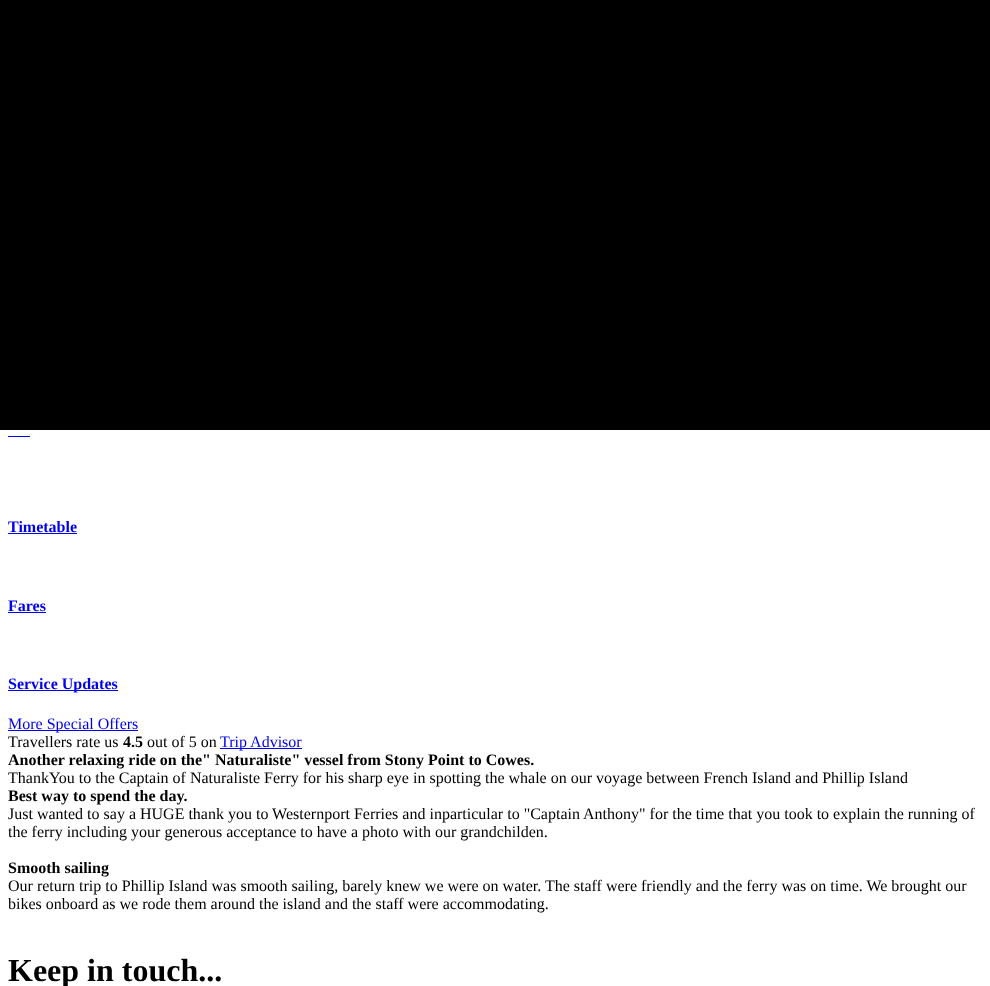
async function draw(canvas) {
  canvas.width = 990
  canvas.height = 986
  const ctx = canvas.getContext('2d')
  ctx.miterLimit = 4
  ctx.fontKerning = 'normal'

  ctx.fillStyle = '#fff'
  ctx.fillRect(0, 0, 990, 986)
  ctx.fillStyle = '#000'
  ctx.fillRect(0, 0, 990, 430)
  ctx.fillStyle = '#00e'
  ctx.fillRect(8, 436, 22, 1)
  ctx.font = 'bold 16px Liberation Serif'
  ctx.fillText('Timetable', 8, 532)
  ctx.fillRect(8, 533, 69, 1)
  ctx.fillText('Fares', 8, 611)
  ctx.fillRect(8, 612, 38, 1)
  ctx.fillRect(8, 690, 110, 1)
  ctx.fillText('Service Updates', 8, 689)
  ctx.fillRect(8, 730, 130, 1)
  ctx.font = '16px Liberation Serif'
  ctx.fillText('More Special Offers', 8, 729)
  ctx.fillStyle = '#000'
  ctx.fillText('Travellers rate us', 8, 747)
  ctx.font = 'bold 16px Liberation Serif'
  ctx.fillText('4.5', 123, 747)
  ctx.font = '16px Liberation Serif'
  ctx.fillText('out of 5 on', 147, 747)
  ctx.fillStyle = '#00e'
  ctx.fillRect(220, 748, 82, 1)
  ctx.fillText('Trip Advisor', 220, 747)
  ctx.font = 'bold 16px Liberation Serif'
  ctx.fillStyle = '#000'
  ctx.fillText('Another relaxing ride on the" Naturaliste" vessel from Stony Point to Cowes.', 8, 765)
  ctx.font = '16px Liberation Serif'
  ctx.fillText('ThankYou to the Captain of Naturaliste Ferry for his sharp eye in spotting the whale on our voyage between French Island and Phillip Island', 8, 783)
  ctx.font = 'bold 16px Liberation Serif'
  ctx.fillText('Best way to spend the day.', 8, 801)
  ctx.font = '16px Liberation Serif'
  ctx.fillText('Just wanted to say a HUGE thank you to Westernport Ferries and inparticular to "Captain Anthony" for the time that you took to explain the running of', 8, 819)
  ctx.fillText('the ferry including your generous acceptance to have a photo with our grandchilden.', 8, 837)
  ctx.font = 'bold 16px Liberation Serif'
  ctx.fillText('Smooth sailing', 8, 873)
  ctx.font = '16px Liberation Serif'
  ctx.fillText('Our return trip to Phillip Island was smooth sailing, barely knew we were on water. The staff were friendly and the ferry was on time. We brought our', 8, 891)
  ctx.fillText('bikes onboard as we rode them around the island and the staff were accommodating.', 8, 909)
  ctx.font = 'bold 32px Liberation Serif'
  ctx.fillText('Keep in touch...', 8, 981)
}

draw(document.querySelector('canvas'))
